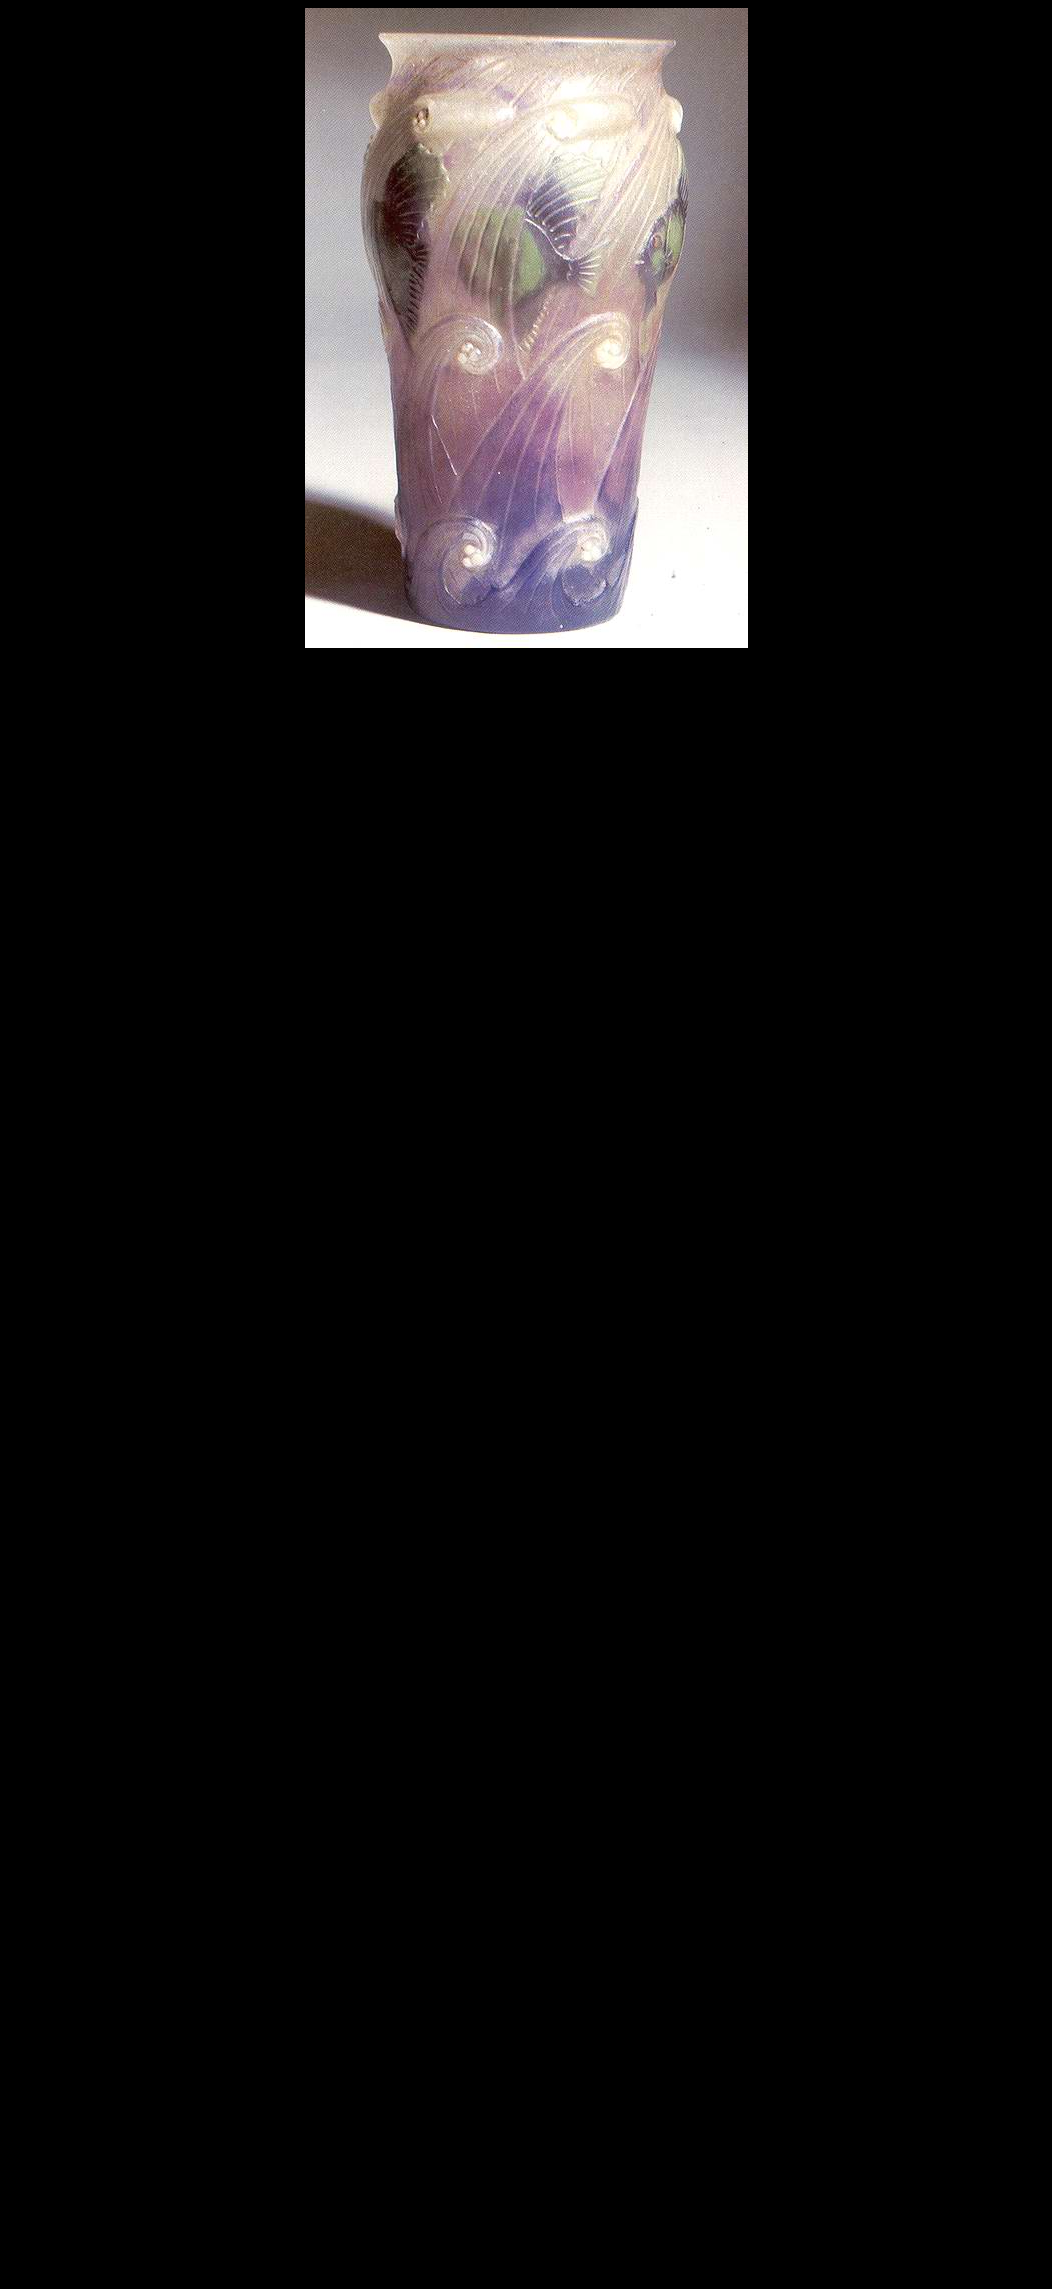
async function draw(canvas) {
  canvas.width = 1052
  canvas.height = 2289
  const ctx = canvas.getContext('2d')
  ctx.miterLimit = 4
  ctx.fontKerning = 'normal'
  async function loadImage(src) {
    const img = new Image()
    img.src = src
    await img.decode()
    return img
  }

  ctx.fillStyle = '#000'
  ctx.fillRect(0, 0, 1052, 2289)
  ctx.drawImage(await loadImage('image0.png'), 305, 8, 443, 640)
}

draw(document.querySelector('canvas'))
